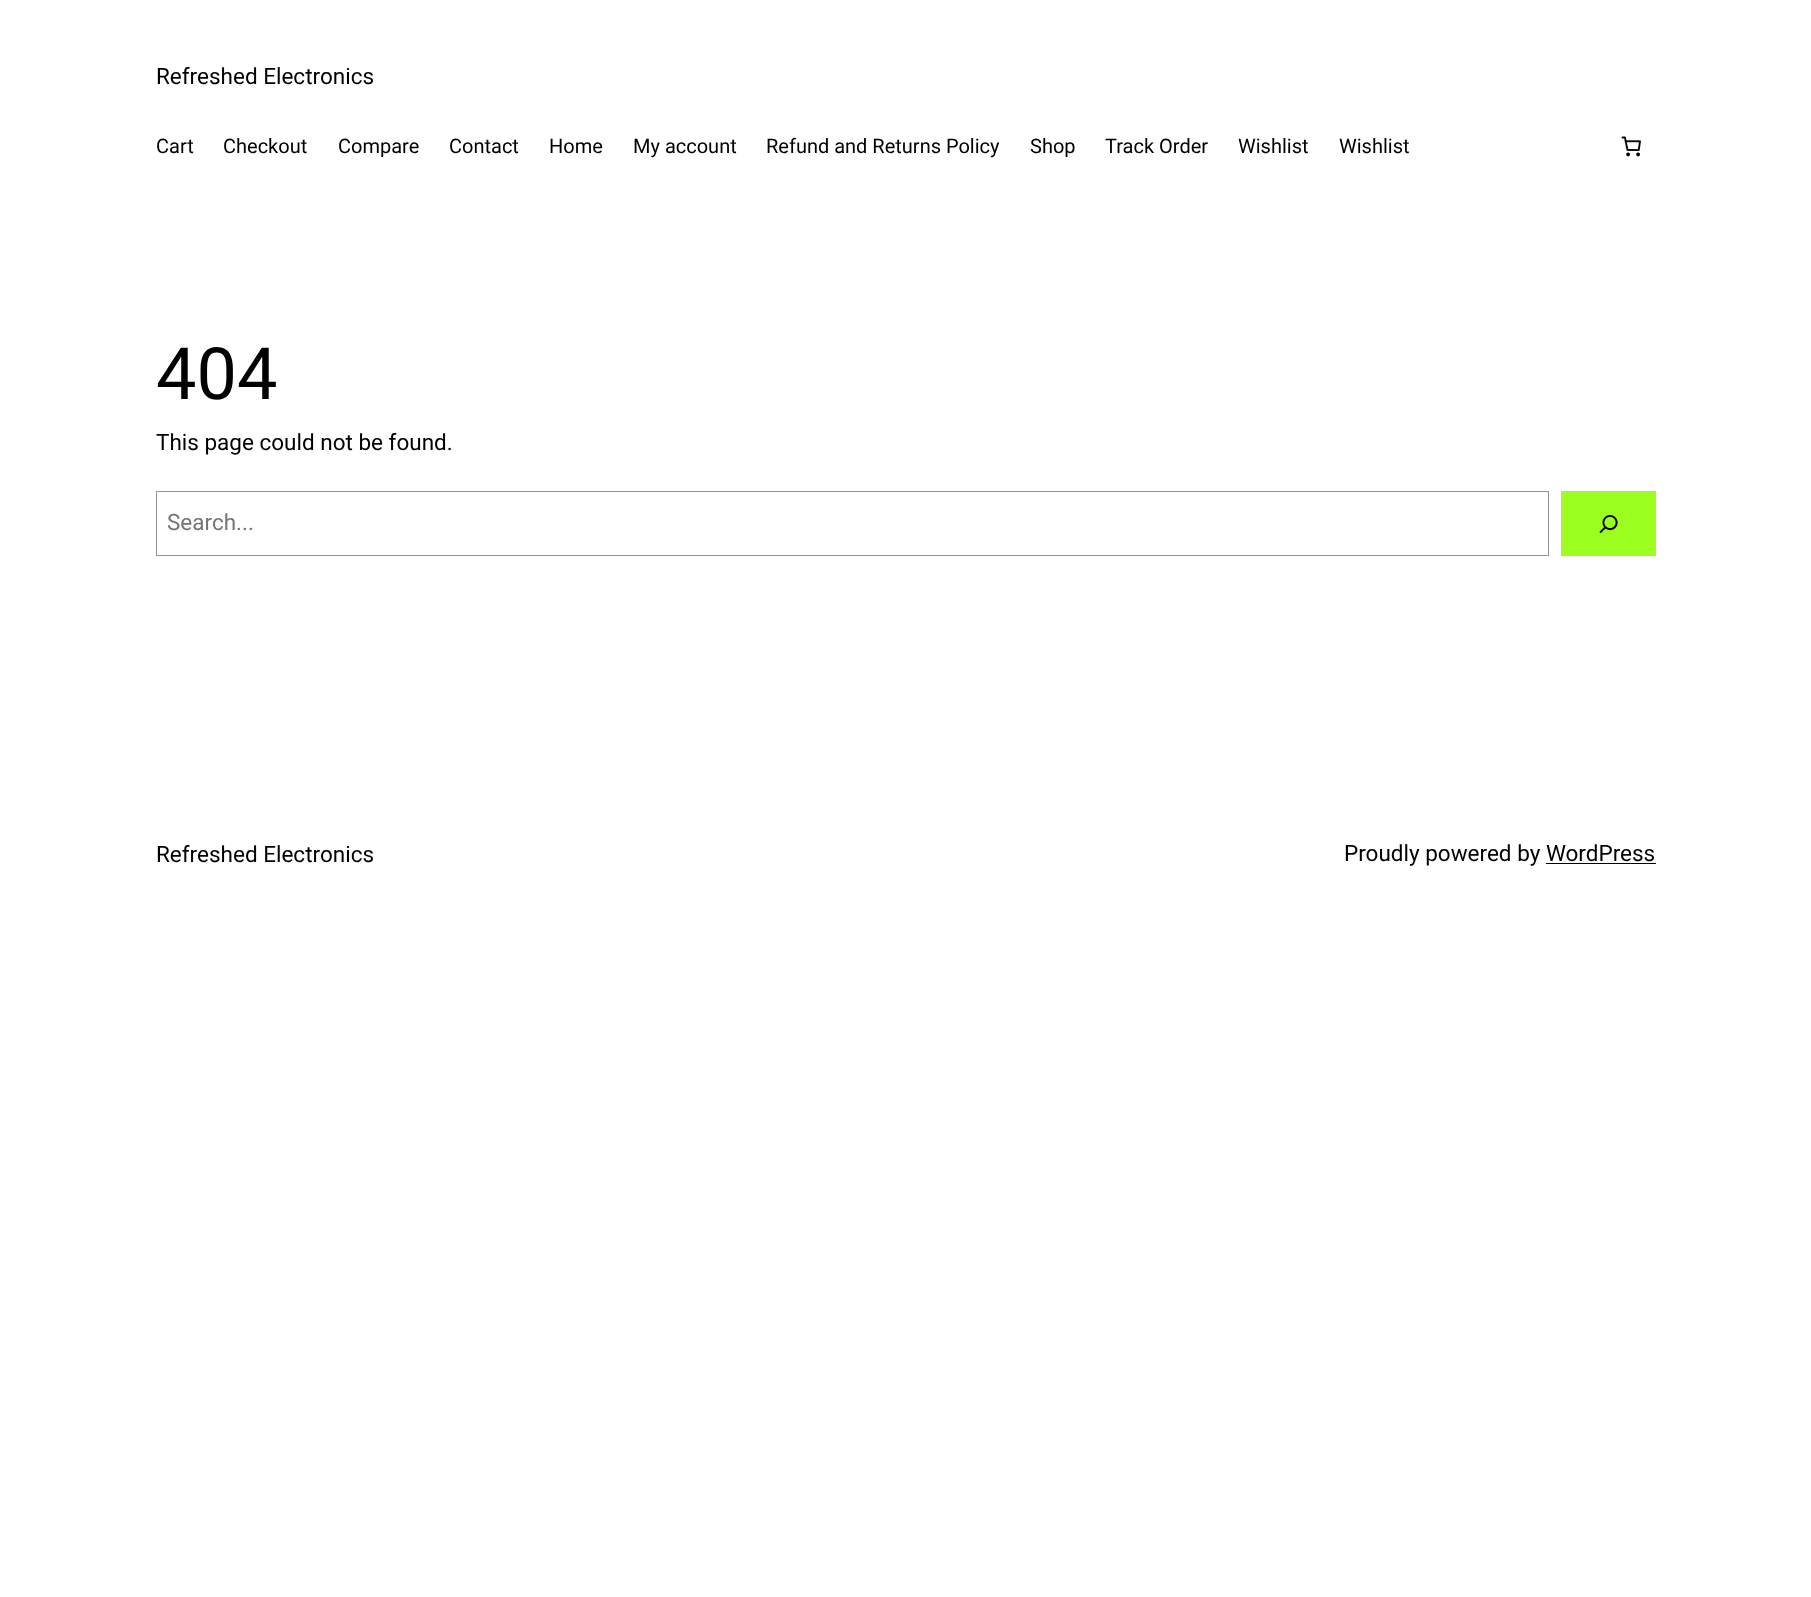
async function draw(canvas) {
  canvas.width = 1811
  canvas.height = 1597
  const ctx = canvas.getContext('2d')
  ctx.miterLimit = 4
  ctx.fontKerning = 'normal'
  async function loadImage(src) {
    const img = new Image()
    img.src = src
    await img.decode()
    return img
  }

  ctx.fillStyle = '#fff'
  ctx.fillRect(0, 0, 1811, 1597)
  ctx.font = '22.5px Roboto'
  ctx.fillStyle = '#000'
  ctx.fillText('Refreshed Electronics', 156, 84)
  ctx.font = '20px Roboto'
  ctx.fillText('Cart', 156, 153)
  ctx.fillText('Checkout', 223, 153)
  ctx.fillText('Compare', 338, 153)
  ctx.fillText('Contact', 449, 153)
  ctx.fillText('Home', 549, 153)
  ctx.fillText('My account', 633, 153)
  ctx.fillText('Refund and Returns Policy', 766, 153)
  ctx.fillText('Shop', 1030, 153)
  ctx.fillText('Track Order', 1105, 153)
  ctx.fillText('Wishlist', 1238, 153)
  ctx.fillText('Wishlist', 1339, 153)
  ctx.drawImage(await loadImage('image0.png'), 1621, 136, 20, 21)
  ctx.font = '72px Roboto'
  ctx.fillText('404', 156, 399)
  ctx.font = '22.5px Roboto'
  ctx.fillText('This page could not be found.', 156, 450)
  ctx.strokeStyle = '#949494'
  ctx.strokeRect(156.5, 491.5, 1392, 64)
  ctx.fillStyle = '#757575'
  ctx.fillText('Search...', 167, 530)
  ctx.fillStyle = '#9dff20'
  ctx.fillRect(1561, 491, 95, 65)
  ctx.drawImage(await loadImage('image1.png'), 1599, 515, 19, 19)
  ctx.fillStyle = '#000'
  ctx.fillText('Refreshed Electronics', 156, 862)
  ctx.fillText('Proudly powered by WordPress', 1344, 861)
  ctx.fillRect(1546, 863, 110, 1)
}

draw(document.querySelector('canvas'))
